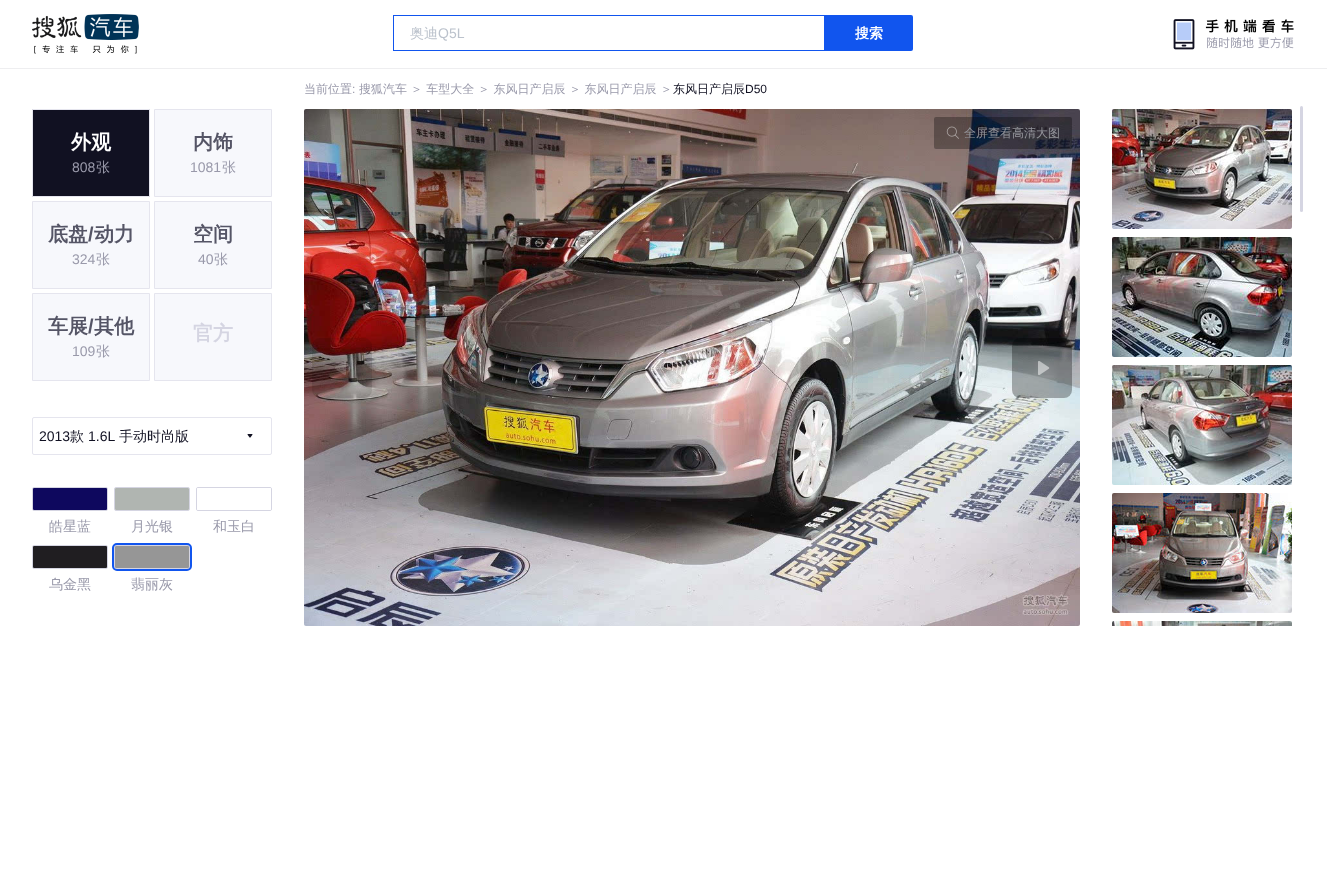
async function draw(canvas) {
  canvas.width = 1327
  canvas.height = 891
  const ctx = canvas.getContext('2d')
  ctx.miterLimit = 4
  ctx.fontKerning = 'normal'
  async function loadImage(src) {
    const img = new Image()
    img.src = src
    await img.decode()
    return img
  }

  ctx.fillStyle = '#fff'
  ctx.fillRect(0, 0, 1327, 891)
  ctx.fillStyle = '#eeeef0'
  ctx.fillRect(0, 68, 1327, 1)
  ctx.drawImage(await loadImage('image0.png'), 32, 14, 107, 40)
  ctx.strokeStyle = '#15e'
  ctx.strokeRect(393.5, 15.5, 431, 35)
  ctx.font = '500 14px WenQuanYi Zen Hei'
  ctx.fillStyle = '#bbc2cc'
  ctx.fillText('奥迪', 410, 38)
  ctx.font = '14px Liberation Sans'
  ctx.fillText('Q5L', 438, 38)
  ctx.fillStyle = '#15e'
  ctx.beginPath()
  ctx.roundRect(825, 15, 88, 36, [0, 2, 2, 0])
  ctx.fill()
  ctx.font = 'bold 14px WenQuanYi Zen Hei'
  ctx.fillStyle = '#fff'
  ctx.fillText('搜索', 855, 38)
  ctx.drawImage(await loadImage('image1.png'), 1173, 19, 121, 31)
  ctx.font = '500 12px WenQuanYi Zen Hei'
  ctx.fillStyle = '#99a'
  ctx.fillText('当前位置', 304, 93)
  ctx.font = '12px Liberation Sans'
  ctx.fillText(':', 352, 93)
  ctx.font = '500 12px WenQuanYi Zen Hei'
  ctx.fillText('搜狐汽车 ＞ 车型大全 ＞ 东风日产启辰 ＞ 东风日产启辰 ＞', 359, 93)
  ctx.fillStyle = '#112'
  ctx.fillText('东风日产启辰', 673, 93)
  ctx.font = '12px Liberation Sans'
  ctx.fillText('D50', 745, 93)
  ctx.beginPath()
  ctx.rect(32.5, 109.5, 117, 87)
  ctx.fill()
  ctx.strokeStyle = '#e5e5ee'
  ctx.stroke()
  ctx.font = 'bold 20px WenQuanYi Zen Hei'
  ctx.fillStyle = '#fff'
  ctx.fillText('外观', 71, 149)
  ctx.font = '14px Liberation Sans'
  ctx.fillStyle = '#99a'
  ctx.fillText('808', 72, 172)
  ctx.font = '500 14px WenQuanYi Zen Hei'
  ctx.fillText('张', 96, 172)
  ctx.fillStyle = '#f7f8fc'
  ctx.beginPath()
  ctx.rect(154.5, 109.5, 117, 87)
  ctx.fill()
  ctx.stroke()
  ctx.font = 'bold 20px WenQuanYi Zen Hei'
  ctx.fillStyle = '#556'
  ctx.fillText('内饰', 193, 149)
  ctx.font = '14px Liberation Sans'
  ctx.fillStyle = '#99a'
  ctx.fillText('1081', 190, 172)
  ctx.font = '500 14px WenQuanYi Zen Hei'
  ctx.fillText('张', 222, 172)
  ctx.fillStyle = '#f7f8fc'
  ctx.beginPath()
  ctx.rect(32.5, 201.5, 117, 87)
  ctx.fill()
  ctx.stroke()
  ctx.font = 'bold 20px WenQuanYi Zen Hei'
  ctx.fillStyle = '#556'
  ctx.fillText('底盘', 48, 241)
  ctx.font = 'bold 20px Liberation Sans'
  ctx.fillText('/', 88, 241)
  ctx.font = 'bold 20px WenQuanYi Zen Hei'
  ctx.fillText('动力', 94, 241)
  ctx.font = '14px Liberation Sans'
  ctx.fillStyle = '#99a'
  ctx.fillText('324', 72, 264)
  ctx.font = '500 14px WenQuanYi Zen Hei'
  ctx.fillText('张', 96, 264)
  ctx.fillStyle = '#f7f8fc'
  ctx.beginPath()
  ctx.rect(154.5, 201.5, 117, 87)
  ctx.fill()
  ctx.stroke()
  ctx.font = 'bold 20px WenQuanYi Zen Hei'
  ctx.fillStyle = '#556'
  ctx.fillText('空间', 193, 241)
  ctx.font = '14px Liberation Sans'
  ctx.fillStyle = '#99a'
  ctx.fillText('40', 198, 264)
  ctx.font = '500 14px WenQuanYi Zen Hei'
  ctx.fillText('张', 214, 264)
  ctx.fillStyle = '#f7f8fc'
  ctx.beginPath()
  ctx.rect(32.5, 293.5, 117, 87)
  ctx.fill()
  ctx.stroke()
  ctx.font = 'bold 20px WenQuanYi Zen Hei'
  ctx.fillStyle = '#556'
  ctx.fillText('车展', 48, 333)
  ctx.font = 'bold 20px Liberation Sans'
  ctx.fillText('/', 88, 333)
  ctx.font = 'bold 20px WenQuanYi Zen Hei'
  ctx.fillText('其他', 94, 333)
  ctx.font = '14px Liberation Sans'
  ctx.fillStyle = '#99a'
  ctx.fillText('109', 72, 356)
  ctx.font = '500 14px WenQuanYi Zen Hei'
  ctx.fillText('张', 96, 356)
  ctx.fillStyle = '#f7f8fc'
  ctx.beginPath()
  ctx.rect(154.5, 293.5, 117, 87)
  ctx.fill()
  ctx.stroke()
  ctx.font = 'bold 20px WenQuanYi Zen Hei'
  ctx.fillStyle = '#d5d5e2'
  ctx.fillText('官方', 193, 340)
  ctx.beginPath()
  ctx.roundRect(32.5, 417.5, 239, 37, 1.5)
  ctx.stroke()
  ctx.font = '14px Liberation Sans'
  ctx.fillStyle = '#112'
  ctx.fillText('2013', 39, 441)
  ctx.font = '500 14px WenQuanYi Zen Hei'
  ctx.fillText('款', 70, 441)
  ctx.font = '14px Liberation Sans'
  ctx.fillText('1.6L', 88, 441)
  ctx.font = '500 14px WenQuanYi Zen Hei'
  ctx.fillText('手动时尚版', 119, 441)
  ctx.drawImage(await loadImage('image2.png'), 247, 434, 6, 4)
  ctx.beginPath()
  ctx.roundRect(32.5, 487.5, 75, 23, 1.5)
  ctx.strokeStyle = '#d5d5e2'
  ctx.stroke()
  ctx.fillStyle = '#0e085e'
  ctx.beginPath()
  ctx.roundRect(33, 488, 74, 22, 1)
  ctx.fill()
  ctx.fillStyle = '#99a'
  ctx.fillText('皓星蓝', 49, 531)
  ctx.beginPath()
  ctx.roundRect(114.5, 487.5, 75, 23, 1.5)
  ctx.stroke()
  ctx.fillStyle = '#b0b5b1'
  ctx.beginPath()
  ctx.roundRect(115, 488, 74, 22, 1)
  ctx.fill()
  ctx.fillStyle = '#99a'
  ctx.fillText('月光银', 131, 531)
  ctx.beginPath()
  ctx.roundRect(196.5, 487.5, 75, 23, 1.5)
  ctx.stroke()
  ctx.fillStyle = '#fff'
  ctx.beginPath()
  ctx.roundRect(197, 488, 74, 22, 1)
  ctx.fill()
  ctx.fillStyle = '#99a'
  ctx.fillText('和玉白', 213, 531)
  ctx.beginPath()
  ctx.roundRect(32.5, 545.5, 75, 23, 1.5)
  ctx.stroke()
  ctx.fillStyle = '#201e21'
  ctx.beginPath()
  ctx.roundRect(33, 546, 74, 22, 1)
  ctx.fill()
  ctx.fillStyle = '#99a'
  ctx.fillText('乌金黑', 49, 589)
  ctx.beginPath()
  ctx.roundRect(114.5, 545.5, 75, 23, 1.5)
  ctx.stroke()
  ctx.fillStyle = '#969696'
  ctx.beginPath()
  ctx.roundRect(115, 546, 74, 22, 1)
  ctx.fill()
  ctx.beginPath()
  ctx.roundRect(113, 544, 78, 26, 4)
  ctx.strokeStyle = '#15e'
  ctx.lineWidth = 2
  ctx.stroke()
  ctx.fillStyle = '#99a'
  ctx.fillText('翡丽灰', 131, 589)
  ctx.drawImage(await loadImage('image3.png'), 304, 109, 776, 517)
  ctx.fillStyle = '#0000004d'
  ctx.beginPath()
  ctx.roundRect(934, 117, 138, 32, 2)
  ctx.fill()
  ctx.drawImage(await loadImage('image4.png'), 946, 126, 13, 13)
  ctx.font = '500 12px WenQuanYi Zen Hei'
  ctx.fillStyle = '#95969c'
  ctx.fillText('全屏查看高清大图', 964, 137)
  ctx.fillStyle = '#0000001a'
  ctx.beginPath()
  ctx.roundRect(312, 338, 60, 60, 8)
  ctx.fill()
  ctx.drawImage(await loadImage('image5.png'), 335, 361, 11, 14)
  ctx.fillStyle = '#0000004d'
  ctx.beginPath()
  ctx.roundRect(1012, 338, 60, 60, 8)
  ctx.fill()
  ctx.drawImage(await loadImage('image6.png'), 1038, 361, 12, 14)
  ctx.drawImage(await loadImage('image7.png'), 1112, 109, 180, 120)
  ctx.drawImage(await loadImage('image8.png'), 1112, 237, 180, 120)
  ctx.drawImage(await loadImage('image9.png'), 1112, 365, 180, 120)
  ctx.drawImage(await loadImage('image10.png'), 1112, 493, 180, 120)
  ctx.drawImage(await loadImage('image11.png'), 1112, 621, 180, 5)
  ctx.fillStyle = '#d5d5e2'
  ctx.beginPath()
  ctx.roundRect(1300, 106, 3, 106, 1.5)
  ctx.fill()
}

draw(document.querySelector('canvas'))
